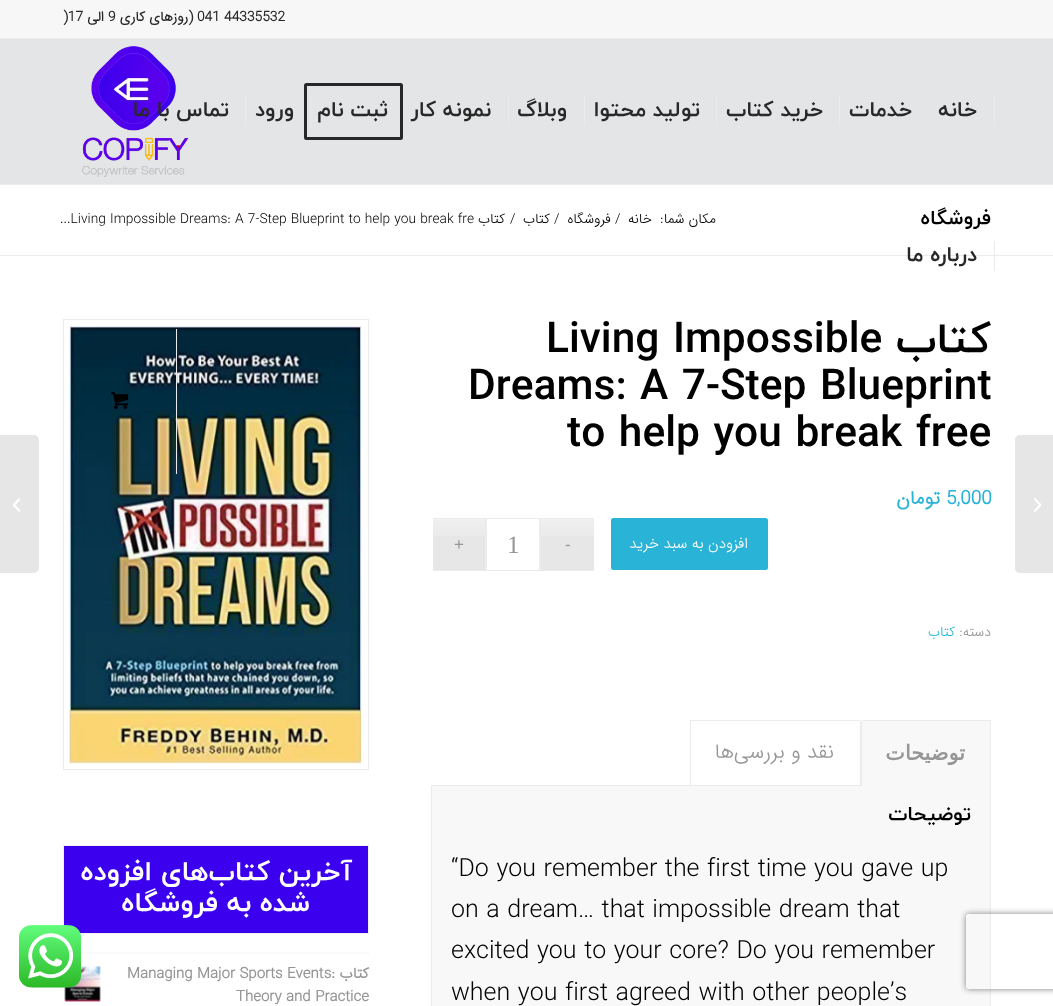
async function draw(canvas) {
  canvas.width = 1053
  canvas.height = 1006
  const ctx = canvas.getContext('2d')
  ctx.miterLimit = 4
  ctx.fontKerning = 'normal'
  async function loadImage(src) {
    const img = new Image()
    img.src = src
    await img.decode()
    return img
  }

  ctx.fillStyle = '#fff'
  ctx.fillRect(0, 0, 1053, 1006)
  ctx.fillStyle = '#3b00ed'
  ctx.beginPath()
  ctx.rect(63.5, 845.5, 305, 88)
  ctx.fill()
  ctx.strokeStyle = '#f2f2f2'
  ctx.stroke()
  ctx.beginPath()
  ctx.moveTo(62.5, 953)
  ctx.lineTo(369, 953)
  ctx.strokeStyle = '#ebebeb'
  ctx.lineWidth = 1.2
  ctx.setLineDash([1.25, 1.25])
  ctx.stroke()
  ctx.drawImage(await loadImage('image5.png'), 64, 966, 37, 36)
  ctx.drawImage(await loadImage('image0.png'), 19, 925, 62, 63)
  ctx.fillStyle = '#f7f7f8'
  ctx.fillRect(0, 0, 1053, 38)
  ctx.fillStyle = '#ebebeb'
  ctx.fillRect(0, 38, 1053, 1)
  ctx.font = 'bold 13.75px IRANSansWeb'
  ctx.fillStyle = '#292828'
  ctx.fillText(')17', 63, 21)
  ctx.direction = 'rtl'
  ctx.fillText('الی', 104, 21)
  ctx.direction = 'ltr'
  ctx.fillText('9', 108, 21)
  ctx.direction = 'rtl'
  ctx.fillText('(روزهای کاری', 193, 21)
  ctx.direction = 'ltr'
  ctx.fillText('041 44335532', 197, 21)
  ctx.fillStyle = '#e4e5e6'
  ctx.fillRect(0, 39, 1053, 145)
  ctx.fillStyle = '#ebebeb'
  ctx.fillRect(0, 184, 1053, 1)
  ctx.drawImage(await loadImage('image1.png'), 82, 46, 107, 131)
  ctx.direction = 'rtl'
  ctx.font = 'bold 21.25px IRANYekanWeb'
  ctx.fillStyle = '#292828'
  ctx.fillText('تماس با ما', 229, 116)
  ctx.fillStyle = '#ebebeb'
  ctx.fillRect(245, 96, 1, 30)
  ctx.fillStyle = '#292828'
  ctx.fillText('ورود', 294, 116)
  ctx.beginPath()
  ctx.roundRect(305.5, 84.5, 96, 54, 1)
  ctx.strokeStyle = '#292828'
  ctx.lineWidth = 3
  ctx.setLineDash([])
  ctx.stroke()
  ctx.fillStyle = '#ebebeb'
  ctx.fillRect(310, 96, 1, 30)
  ctx.fillStyle = '#292828'
  ctx.fillText('ثبت نام', 388, 116)
  ctx.fillText('نمونه کار', 491, 116)
  ctx.fillStyle = '#ebebeb'
  ctx.fillRect(508, 96, 1, 30)
  ctx.fillStyle = '#292828'
  ctx.fillText('وبلاگ', 567, 116)
  ctx.fillStyle = '#ebebeb'
  ctx.fillRect(584, 96, 1, 30)
  ctx.fillStyle = '#292828'
  ctx.fillText('تولید محتوا', 700, 116)
  ctx.fillStyle = '#ebebeb'
  ctx.fillRect(716, 96, 1, 30)
  ctx.fillStyle = '#292828'
  ctx.fillText('خرید کتاب', 823, 116)
  ctx.fillStyle = '#ebebeb'
  ctx.fillRect(839, 96, 1, 30)
  ctx.fillStyle = '#292828'
  ctx.fillText('خدمات', 912, 116)
  ctx.fillText('خانه', 977, 116)
  ctx.fillStyle = '#ebebeb'
  ctx.fillRect(994, 96, 1, 30)
  ctx.fillRect(0, 255, 1053, 1)
  ctx.fillStyle = '#292828'
  ctx.fillText('درباره ما', 977, 261)
  ctx.fillStyle = '#ebebeb'
  ctx.fillRect(994, 241, 1, 30)
  ctx.strokeStyle = '#ebebeb'
  ctx.lineWidth = 1
  ctx.strokeRect(63.5, 319.5, 305, 450)
  ctx.drawImage(await loadImage('image4.png'), 69, 326, 293, 438)
  ctx.fillRect(176, 329, 1, 145)
  ctx.drawImage(await loadImage('image2.png'), 111, 392, 18, 17)
  ctx.fillStyle = '#e6e6e6'
  ctx.beginPath()
  ctx.roundRect(0, 435, 39, 138, [0, 5, 5, 0])
  ctx.fill()
  ctx.drawImage(await loadImage('image3.png'), 13, 498, 7, 14)
  ctx.direction = 'ltr'
  ctx.font = '300 13.75px IRANSansWeb'
  ctx.fillStyle = '#000'
  ctx.fillText('...Living Impossible Dreams: A 7-Step Blueprint to help you break fre', 60, 223)
  ctx.direction = 'rtl'
  ctx.fillText('کتاب', 505, 223)
  ctx.direction = 'ltr'
  ctx.fillText('/', 510, 223)
  ctx.direction = 'rtl'
  ctx.fillText('کتاب', 550, 223)
  ctx.direction = 'ltr'
  ctx.fillText('/', 554, 223)
  ctx.direction = 'rtl'
  ctx.fillText('فروشگاه', 611, 223)
  ctx.direction = 'ltr'
  ctx.fillText('/', 615, 223)
  ctx.direction = 'rtl'
  ctx.fillText('خانه', 652, 223)
  ctx.fillText('مکان شما:', 716, 223)
  ctx.font = 'bold 20px IRANYekanWeb'
  ctx.fillText('فروشگاه', 991, 224)
  ctx.font = 'bold 27.5px IRANYekanWeb'
  ctx.fillStyle = '#fff'
  ctx.fillText('آخرین کتاب‌های افزوده', 352, 880)
  ctx.fillText('شده به فروشگاه', 310, 911)
  ctx.direction = 'ltr'
  ctx.font = 'bold 15px IRANSansWeb'
  ctx.fillStyle = '#969696'
  ctx.fillText('Managing Major Sports Events:', 127, 978)
  ctx.direction = 'rtl'
  ctx.fillText('کتاب', 369, 978)
  ctx.direction = 'ltr'
  ctx.fillText('Theory and Practice', 236, 1001)
  ctx.font = 'bold 42.5px IRANYekanWeb'
  ctx.fillStyle = '#000'
  ctx.fillText('Living Impossible', 546, 352)
  ctx.direction = 'rtl'
  ctx.fillText('کتاب', 991, 352)
  ctx.direction = 'ltr'
  ctx.fillText('Dreams: A 7-Step Blueprint', 468, 399)
  ctx.fillText('to help you break free', 567, 446)
  ctx.direction = 'rtl'
  ctx.font = 'bold 19px IRANSansWeb'
  ctx.fillStyle = '#29b3d6'
  ctx.fillText('تومان', 940, 504)
  ctx.direction = 'ltr'
  ctx.fillText('5,000', 946, 504)
  ctx.fillStyle = '#e7e7e7'
  ctx.fillRect(433, 519, 52, 51)
  ctx.drawImage(await loadImage('image6.png'), 433, 519, 52, 17)
  ctx.fillRect(541, 519, 53, 51)
  ctx.drawImage(await loadImage('image7.png'), 541, 519, 53, 17)
  ctx.font = '17px Liberation Sans'
  ctx.fillStyle = '#969696'
  ctx.fillText('+', 454, 550)
  ctx.fillStyle = '#ebebeb'
  ctx.fillRect(433, 518, 53, 1)
  ctx.fillRect(485, 518, 1, 53)
  ctx.fillRect(433, 570, 53, 1)
  ctx.strokeRect(486.5, 518.5, 53, 52)
  ctx.font = '25px Liberation Serif'
  ctx.fillStyle = '#969696'
  ctx.fillText('1', 507, 553)
  ctx.font = '17px Liberation Sans'
  ctx.fillText('-', 565, 550)
  ctx.fillStyle = '#ebebeb'
  ctx.fillRect(540, 518, 54, 1)
  ctx.fillRect(540, 570, 54, 1)
  ctx.fillRect(540, 518, 1, 53)
  ctx.fillStyle = '#29b3d6'
  ctx.beginPath()
  ctx.roundRect(611, 518, 157, 52, 2.5)
  ctx.fill()
  ctx.direction = 'rtl'
  ctx.font = '300 15px IRANSansWeb'
  ctx.fillStyle = '#fff'
  ctx.fillText('افزودن به سبد خرید', 748, 548)
  ctx.font = '300 13.75px IRANSansWeb'
  ctx.fillStyle = '#29b3d6'
  ctx.fillText('کتاب', 955, 636)
  ctx.fillStyle = '#969696'
  ctx.fillText('دسته:', 991, 636)
  ctx.fillStyle = '#ebebeb'
  ctx.fillRect(690, 720, 170, 1)
  ctx.fillStyle = '#f8f8f8'
  ctx.beginPath()
  ctx.rect(431.5, 785.5, 559, 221)
  ctx.fill()
  ctx.stroke()
  ctx.fillStyle = '#ebebeb'
  ctx.fillRect(860, 721, 1, 65)
  ctx.fillRect(690, 720, 1, 66)
  ctx.font = '300 20.75px IRANSansWeb'
  ctx.fillStyle = '#969696'
  ctx.fillText('نقد و بررسی‌ها', 834, 758)
  ctx.fillStyle = '#f8f8f8'
  ctx.fillRect(861, 720, 129, 66)
  ctx.fillStyle = '#ebebeb'
  ctx.fillRect(863, 720, 128, 1)
  ctx.fillRect(990, 720, 1, 66)
  ctx.fillRect(861, 721, 1, 65)
  ctx.font = 'bold 20.75px DejaVu Sans'
  ctx.fillStyle = '#969696'
  ctx.fillText('توضیحات', 965, 760)
  ctx.font = 'bold 20px IRANYekanWeb'
  ctx.fillStyle = '#000'
  ctx.fillText('توضیحات', 971, 820)
  ctx.direction = 'ltr'
  ctx.font = '300 25px IRANSansWeb'
  ctx.fillText('“Do you remember the first time you gave up', 451, 876)
  ctx.fillText('on a dream… that impossible dream that', 451, 917)
  ctx.fillText('excited you to your core? Do you remember', 451, 958)
  ctx.fillText('when you first agreed with other people’s', 451, 1000)
  ctx.fillStyle = '#e6e6e6'
  ctx.beginPath()
  ctx.moveTo(1020, 435)
  ctx.lineTo(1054, 435)
  ctx.lineTo(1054, 573)
  ctx.lineTo(1020, 573)
  ctx.bezierCurveTo(1017, 573, 1015, 571, 1015, 568)
  ctx.lineTo(1015, 440)
  ctx.bezierCurveTo(1015, 437, 1017, 435, 1020, 435)
  ctx.closePath()
  ctx.fill()
  ctx.drawImage(await loadImage('image8.png'), 1034, 498, 7, 14)
  ctx.save()
  ctx.beginPath()
  ctx.moveTo(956, 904)
  ctx.lineTo(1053, 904)
  ctx.lineTo(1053, 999)
  ctx.lineTo(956, 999)
  ctx.closePath()
  ctx.moveTo(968.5, 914)
  ctx.lineTo(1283.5, 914)
  ctx.bezierCurveTo(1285, 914, 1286, 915, 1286, 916.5)
  ctx.lineTo(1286, 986.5)
  ctx.bezierCurveTo(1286, 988, 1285, 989, 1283.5, 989)
  ctx.lineTo(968.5, 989)
  ctx.bezierCurveTo(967, 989, 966, 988, 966, 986.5)
  ctx.lineTo(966, 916.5)
  ctx.bezierCurveTo(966, 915, 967, 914, 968.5, 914)
  ctx.closePath()
  ctx.clip('evenodd')
  ctx.fillStyle = '#808080'
  ctx.filter = 'blur(3px)'
  ctx.beginPath()
  ctx.roundRect(966, 914, 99, 75, 2.5)
  ctx.fill()
  ctx.filter = 'none'
  ctx.restore()
}

draw(document.querySelector('canvas'))
